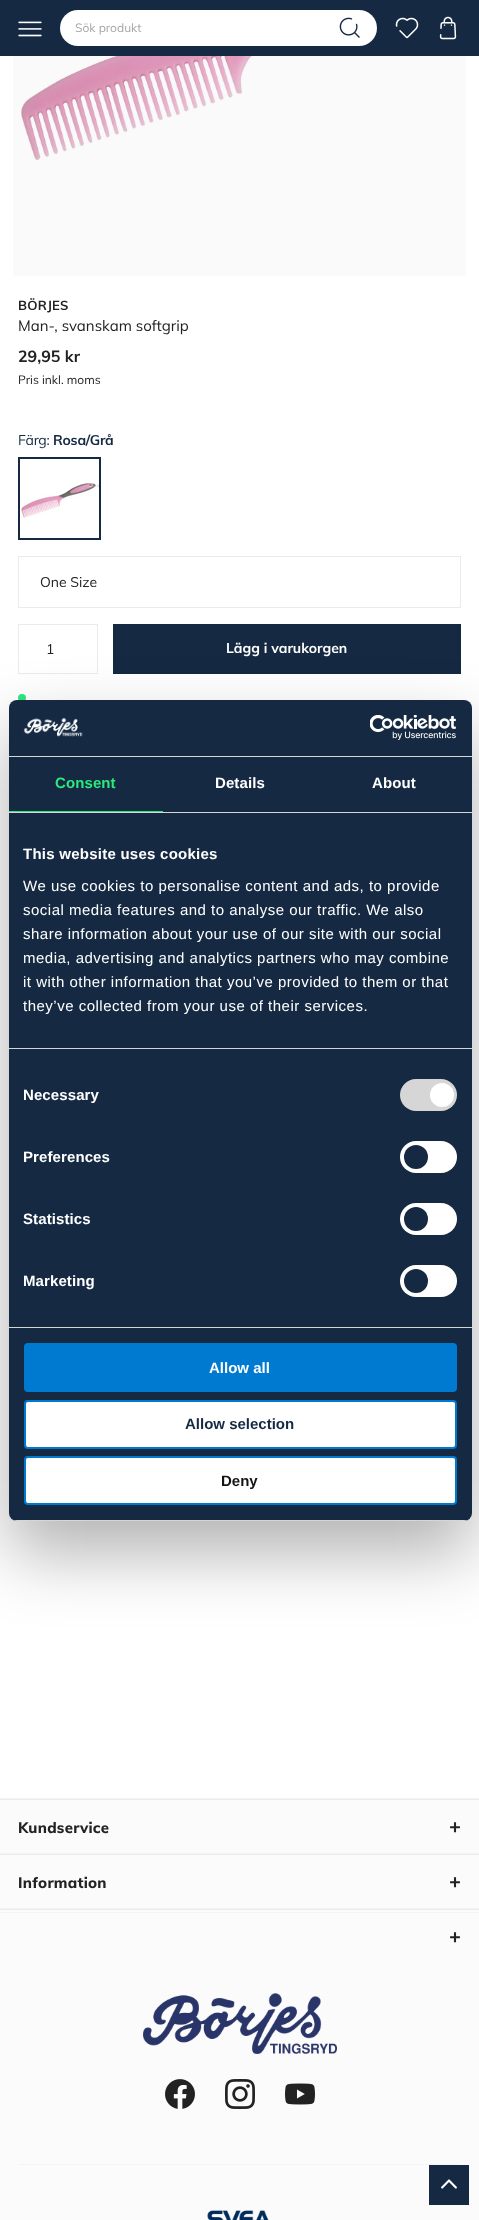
async function draw(canvas) {
  canvas.width = 479
  canvas.height = 2220
  const ctx = canvas.getContext('2d')
  ctx.miterLimit = 4
  ctx.fontKerning = 'normal'
  async function loadImage(src) {
    const img = new Image()
    img.src = src
    await img.decode()
    return img
  }

  ctx.fillStyle = '#fff'
  ctx.fillRect(0, 0, 479, 2220)
  ctx.fillStyle = '#152942'
  ctx.fillRect(0, 0, 479, 56)
  ctx.drawImage(await loadImage('image0.png'), 18, 21, 24, 16)
  ctx.drawImage(await loadImage('image1.png'), 395, 17, 24, 22)
  ctx.drawImage(await loadImage('image2.png'), 439, 16, 18, 24)
  ctx.fillStyle = '#fff'
  ctx.beginPath()
  ctx.roundRect(60, 10, 317, 36, 18)
  ctx.fill()
  ctx.font = '12px Muli'
  ctx.fillStyle = '#a6a6a6'
  ctx.fillText('Sök produkt', 75, 32)
  ctx.drawImage(await loadImage('image3.png'), 339, 17, 21, 21)
  ctx.fillStyle = '#fafafa'
  ctx.fillRect(13, 56, 453, 220)
  ctx.drawImage(await loadImage('image4.png'), 21, 56, 391, 104)
  ctx.letterSpacing = '0.25px'
  ctx.font = 'bold 13px Muli'
  ctx.fillStyle = '#222'
  ctx.fillText('BÖRJES', 18, 310)
  ctx.letterSpacing = '0px'
  ctx.font = '15px Muli'
  ctx.fillText('Man-, svanskam softgrip', 18, 331)
  ctx.font = 'bold 16px Muli'
  ctx.fillText('29,95 kr', 18, 362)
  ctx.font = '12px Muli'
  ctx.fillText('Pris inkl. moms', 18, 384)
  ctx.strokeStyle = '#152942'
  ctx.lineWidth = 2
  ctx.strokeRect(19, 458, 81, 81)
  ctx.letterSpacing = '-0.25px'
  ctx.font = '14px Muli'
  ctx.fillStyle = '#152942'
  ctx.fillText('Färg:', 18, 445)
  ctx.font = 'bold 14px Muli'
  ctx.fillText('Rosa/Grå', 53, 445)
  ctx.drawImage(await loadImage('image5.png'), 20, 483, 79, 36)
  ctx.strokeStyle = '#ebebeb'
  ctx.lineWidth = 1
  ctx.strokeRect(18.5, 556.5, 442, 51)
  ctx.letterSpacing = '0px'
  ctx.font = '14px Muli'
  ctx.fillStyle = '#222'
  ctx.fillText('One Size', 40, 587)
  ctx.strokeRect(18.5, 624.5, 79, 49)
  ctx.fillText('1', 46, 654)
  ctx.fillStyle = '#152942'
  ctx.fillRect(113, 624, 348, 50)
  ctx.font = 'bold 14px Muli'
  ctx.fillStyle = '#fff'
  ctx.fillText('Lägg i varukorgen', 226, 653)
  ctx.fillStyle = '#2ce87e'
  ctx.beginPath()
  ctx.arc(22, 698, 4, 0, 2 * Math.PI)
  ctx.fill()
  ctx.fillStyle = '#0000004d'
  ctx.filter = 'blur(34px)'
  ctx.beginPath()
  ctx.roundRect(9, 732, 463, 821, 8)
  ctx.fill()
  ctx.filter = 'none'
  ctx.fillStyle = '#152942'
  ctx.beginPath()
  ctx.roundRect(9, 700, 463, 821, 8)
  ctx.fill()
  ctx.fillStyle = '#d6d6d6'
  ctx.fillRect(9, 756, 463, 1)
  ctx.drawImage(await loadImage('image6.png'), 23, 717, 60, 20)
  ctx.drawImage(await loadImage('image7.png'), 370, 715, 87, 25)
  ctx.fillRect(9, 812, 463, 1)
  ctx.fillStyle = '#2ce87e'
  ctx.fillRect(9, 811, 154, 1)
  ctx.letterSpacing = '0.1px'
  ctx.font = 'bold 15px Liberation Sans'
  ctx.fillText('Consent', 55, 788)
  ctx.fillStyle = '#fff'
  ctx.fillText('Details', 215, 788)
  ctx.fillText('About', 372, 788)
  ctx.fillStyle = '#d6d6d6'
  ctx.fillRect(9, 1048, 463, 1)
  ctx.letterSpacing = '0.25px'
  ctx.fillStyle = '#fff'
  ctx.fillText('This website uses cookies', 23, 859)
  ctx.letterSpacing = '0.5px'
  ctx.font = '15px Liberation Sans'
  ctx.fillText('We use cookies to personalise content and ads, to provide', 23, 891)
  ctx.fillText('social media features and to analyse our traffic. We also', 23, 915)
  ctx.fillText('share information about your use of our site with our social', 23, 939)
  ctx.fillText('media, advertising and analytics partners who may combine', 23, 963)
  ctx.fillText('it with other information that you’ve provided to them or that', 23, 987)
  ctx.fillText('they’ve collected from your use of their services.', 23, 1011)
  ctx.fillStyle = '#d6d6d6'
  ctx.fillRect(9, 1327, 463, 1)
  ctx.letterSpacing = '0.1px'
  ctx.font = 'bold 15px Liberation Sans'
  ctx.fillStyle = '#fff'
  ctx.fillText('Necessary', 23, 1100)
  ctx.fillStyle = '#d6d6d6'
  ctx.beginPath()
  ctx.roundRect(400, 1079, 57, 32, 16)
  ctx.fill()
  ctx.fillStyle = '#fff'
  ctx.beginPath()
  ctx.arc(442, 1095, 12, 0, 2 * Math.PI)
  ctx.fill()
  ctx.fillText('Preferences', 23, 1162)
  ctx.beginPath()
  ctx.roundRect(400, 1141, 57, 32, 16)
  ctx.fill()
  ctx.fillStyle = '#152942'
  ctx.beginPath()
  ctx.arc(416, 1157, 12, 0, 2 * Math.PI)
  ctx.fill()
  ctx.fillStyle = '#fff'
  ctx.fillText('Statistics', 23, 1224)
  ctx.beginPath()
  ctx.roundRect(400, 1203, 57, 32, 16)
  ctx.fill()
  ctx.fillStyle = '#152942'
  ctx.beginPath()
  ctx.arc(416, 1219, 12, 0, 2 * Math.PI)
  ctx.fill()
  ctx.fillStyle = '#fff'
  ctx.fillText('Marketing', 23, 1286)
  ctx.beginPath()
  ctx.roundRect(400, 1265, 57, 32, 16)
  ctx.fill()
  ctx.fillStyle = '#152942'
  ctx.beginPath()
  ctx.arc(416, 1281, 12, 0, 2 * Math.PI)
  ctx.fill()
  ctx.save()
  ctx.beginPath()
  ctx.roundRect(9, 700, 463, 821, 8)
  ctx.clip()
  ctx.fillStyle = '#d6d6d6'
  ctx.fillRect(9, 1520, 463, 1)
  ctx.restore()
  ctx.fillStyle = '#007ad1'
  ctx.beginPath()
  ctx.roundRect(25, 1344, 431, 47, 3)
  ctx.fill()
  ctx.strokeStyle = '#007ad1'
  ctx.lineWidth = 2
  ctx.stroke()
  ctx.letterSpacing = '0px'
  ctx.fillStyle = '#fff'
  ctx.fillText('Allow all', 209, 1373)
  ctx.beginPath()
  ctx.roundRect(25, 1401, 431, 47, 3)
  ctx.fill()
  ctx.stroke()
  ctx.fillStyle = '#152942'
  ctx.fillText('Allow selection', 185, 1429)
  ctx.fillStyle = '#fff'
  ctx.beginPath()
  ctx.roundRect(25, 1457, 431, 47, 3)
  ctx.fill()
  ctx.stroke()
  ctx.fillStyle = '#141414'
  ctx.fillText('Deny', 221, 1486)
  ctx.fillStyle = '#fbfbfb'
  ctx.fillRect(0, 1800, 479, 420)
  ctx.fillStyle = '#f4f4f4'
  ctx.fillRect(0, 1798, 479, 1)
  ctx.fillStyle = '#ebebeb'
  ctx.fillRect(0, 1799, 479, 1)
  ctx.fillRect(0, 1854, 479, 1)
  ctx.fillStyle = '#f4f4f4'
  ctx.fillRect(0, 1853, 479, 1)
  ctx.letterSpacing = '0.25px'
  ctx.font = '800 15px Muli'
  ctx.fillStyle = '#222'
  ctx.fillText('Kundservice', 18, 1833)
  ctx.font = '800 20px Muli'
  ctx.fillText('+', 449, 1833)
  ctx.fillStyle = '#ebebeb'
  ctx.fillRect(0, 1909, 479, 1)
  ctx.fillStyle = '#f4f4f4'
  ctx.fillRect(0, 1908, 479, 1)
  ctx.font = '800 15px Muli'
  ctx.fillStyle = '#222'
  ctx.fillText('Information', 18, 1888)
  ctx.font = '800 20px Muli'
  ctx.fillText('+', 449, 1888)
  ctx.fillStyle = '#f4f4f4'
  ctx.fillRect(0, 1912, 479, 1)
  ctx.fillStyle = '#222'
  ctx.fillText('+', 449, 1943)
  ctx.drawImage(await loadImage('image8.png'), 143, 1993, 194, 61)
  ctx.drawImage(await loadImage('image9.png'), 165, 2079, 30, 30)
  ctx.drawImage(await loadImage('image10.png'), 225, 2079, 30, 30)
  ctx.drawImage(await loadImage('image11.png'), 285, 2083, 30, 22)
  ctx.fillStyle = '#f4f4f4'
  ctx.fillRect(18, 2164, 443, 1)
  ctx.drawImage(await loadImage('image12.png'), 207, 2210, 62, 10)
  ctx.fillStyle = '#152942'
  ctx.fillRect(429, 2165, 40, 40)
  ctx.drawImage(await loadImage('image13.png'), 441, 2179, 16, 10)
}

draw(document.querySelector('canvas'))
